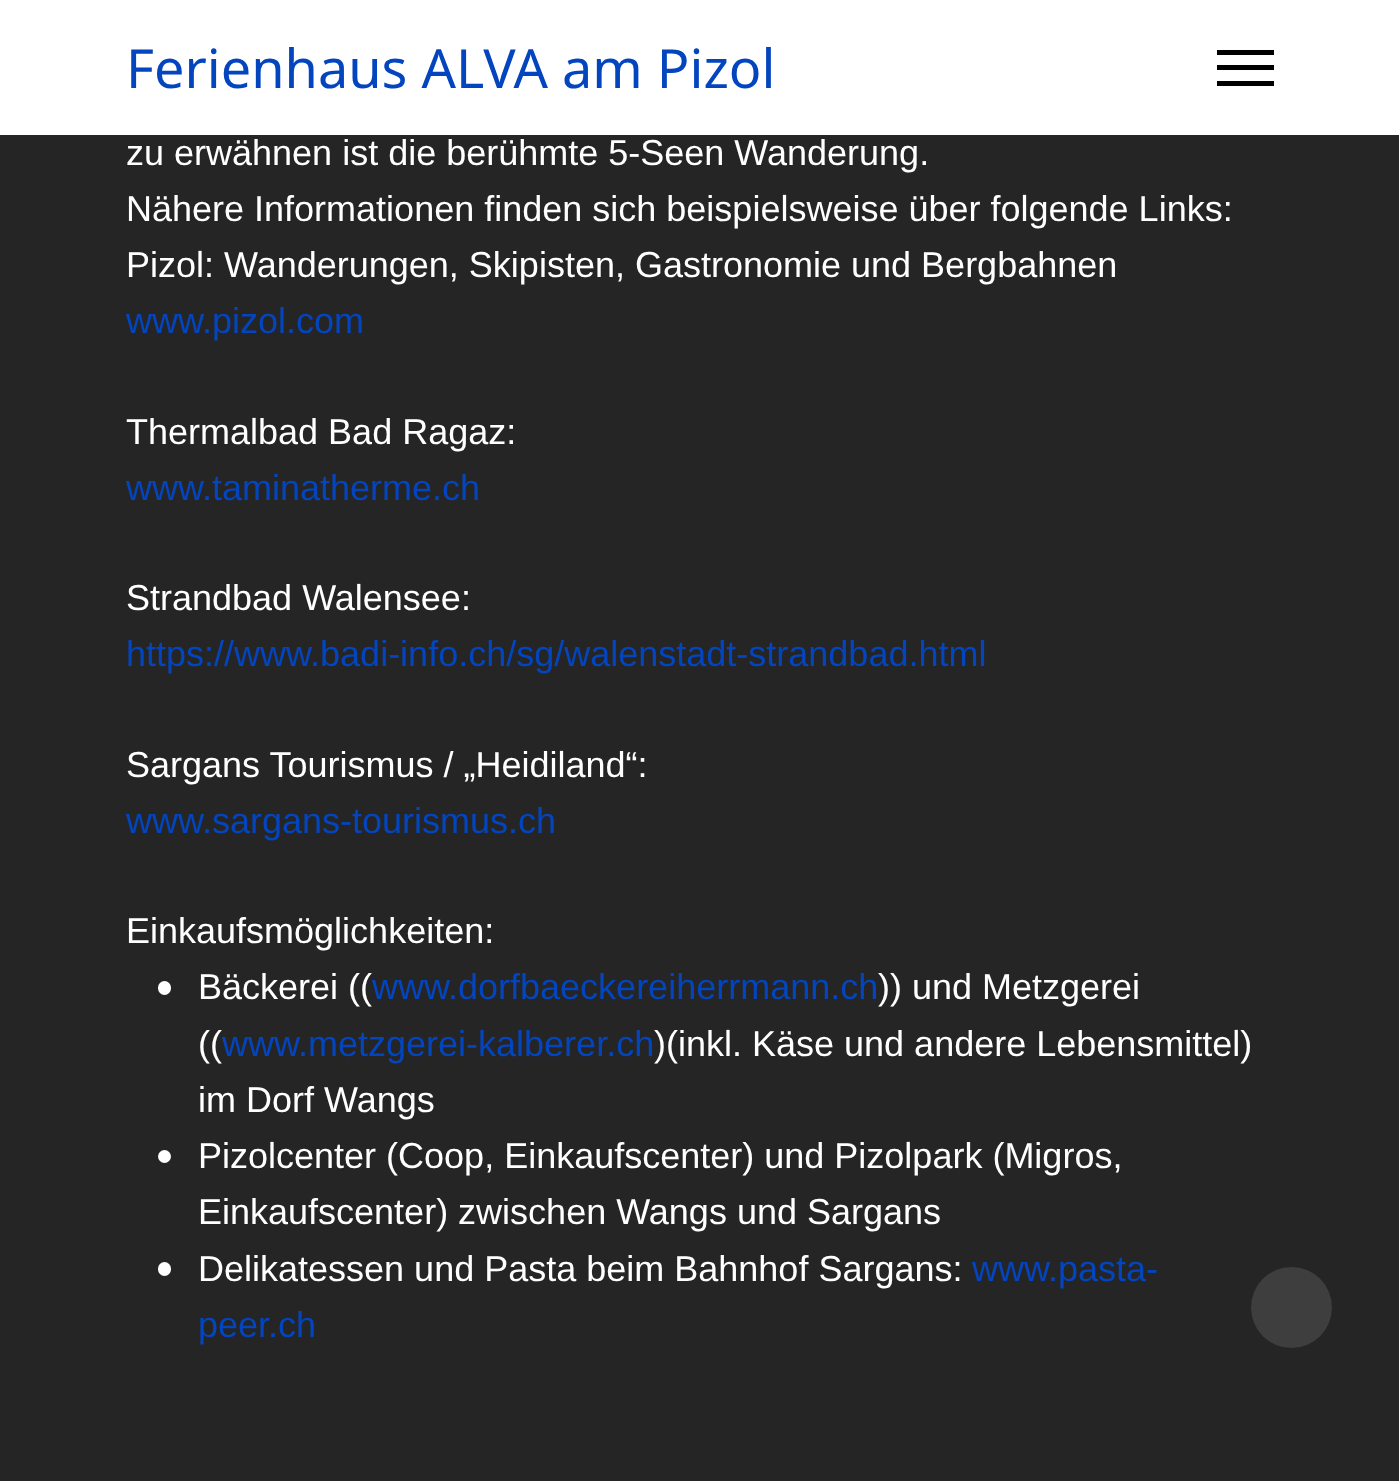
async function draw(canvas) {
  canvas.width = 1399
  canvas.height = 1481
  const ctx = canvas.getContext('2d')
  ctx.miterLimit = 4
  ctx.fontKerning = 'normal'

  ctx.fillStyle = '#252525'
  ctx.fillRect(0, 0, 1399, 1481)
  ctx.fillStyle = '#fff'
  ctx.fillRect(0, 0, 1399, 135)
  ctx.font = '54px Noto Sans'
  ctx.fillStyle = '#0345bf'
  ctx.fillText('Ferienhaus ALVA am Pizol', 126, 88)
  ctx.fillStyle = '#000'
  ctx.fillRect(1217, 50, 57, 5)
  ctx.fillRect(1217, 65, 57, 5)
  ctx.fillRect(1217, 81, 57, 5)
  ctx.font = '36px Liberation Sans'
  ctx.fillStyle = '#fff'
  ctx.fillText('zu erwähnen ist die berühmte 5-Seen Wanderung.', 126, 165)
  ctx.fillText('Nähere Informationen finden sich beispielsweise über folgende Links:', 126, 221)
  ctx.fillText('Pizol: Wanderungen, Skipisten, Gastronomie und Bergbahnen', 126, 277)
  ctx.fillStyle = '#0345bf'
  ctx.fillText('www.pizol.com', 126, 333)
  ctx.fillStyle = '#fff'
  ctx.fillText('Thermalbad Bad Ragaz:', 126, 444)
  ctx.fillStyle = '#0345bf'
  ctx.fillText('www.taminatherme.ch', 126, 500)
  ctx.fillStyle = '#fff'
  ctx.fillText('Strandbad Walensee:', 126, 610)
  ctx.fillStyle = '#0345bf'
  ctx.fillText('https://www.badi-info.ch/sg/walenstadt-strandbad.html', 126, 666)
  ctx.fillStyle = '#fff'
  ctx.fillText('Sargans Tourismus / „Heidiland“:', 126, 777)
  ctx.fillStyle = '#0345bf'
  ctx.fillText('www.sargans-tourismus.ch', 126, 833)
  ctx.fillStyle = '#fff'
  ctx.fillText('Einkaufsmöglichkeiten:', 126, 943)
  ctx.beginPath()
  ctx.roundRect(158, 981, 13, 14, 6.5)
  ctx.fill()
  ctx.fillText('Bäckerei ((', 198, 999)
  ctx.fillStyle = '#0345bf'
  ctx.fillText('www.dorfbaeckereiherrmann.ch', 372, 999)
  ctx.fillStyle = '#fff'
  ctx.fillText(')) und Metzgerei', 878, 999)
  ctx.fillText('((', 198, 1056)
  ctx.fillStyle = '#0345bf'
  ctx.fillText('www.metzgerei-kalberer.ch', 222, 1056)
  ctx.fillStyle = '#fff'
  ctx.fillText(')(inkl. Käse und andere Lebensmittel)', 654, 1056)
  ctx.fillText('im Dorf Wangs', 198, 1112)
  ctx.beginPath()
  ctx.arc(164.5, 1156.5, 6.5, 0, 2 * Math.PI)
  ctx.fill()
  ctx.fillText('Pizolcenter (Coop, Einkaufscenter) und Pizolpark (Migros,', 198, 1168)
  ctx.fillText('Einkaufscenter) zwischen Wangs und Sargans', 198, 1224)
  ctx.beginPath()
  ctx.roundRect(158, 1262, 13, 14, 6.5)
  ctx.fill()
  ctx.fillText('Delikatessen und Pasta beim Bahnhof Sargans:', 198, 1281)
  ctx.fillStyle = '#0345bf'
  ctx.fillText('www.pasta-', 972, 1281)
  ctx.fillText('peer.ch', 198, 1337)
  ctx.fillStyle = '#3e3e3e'
  ctx.beginPath()
  ctx.arc(1291.5, 1307.5, 40.5, 0, 2 * Math.PI)
  ctx.fill()
}

draw(document.querySelector('canvas'))
